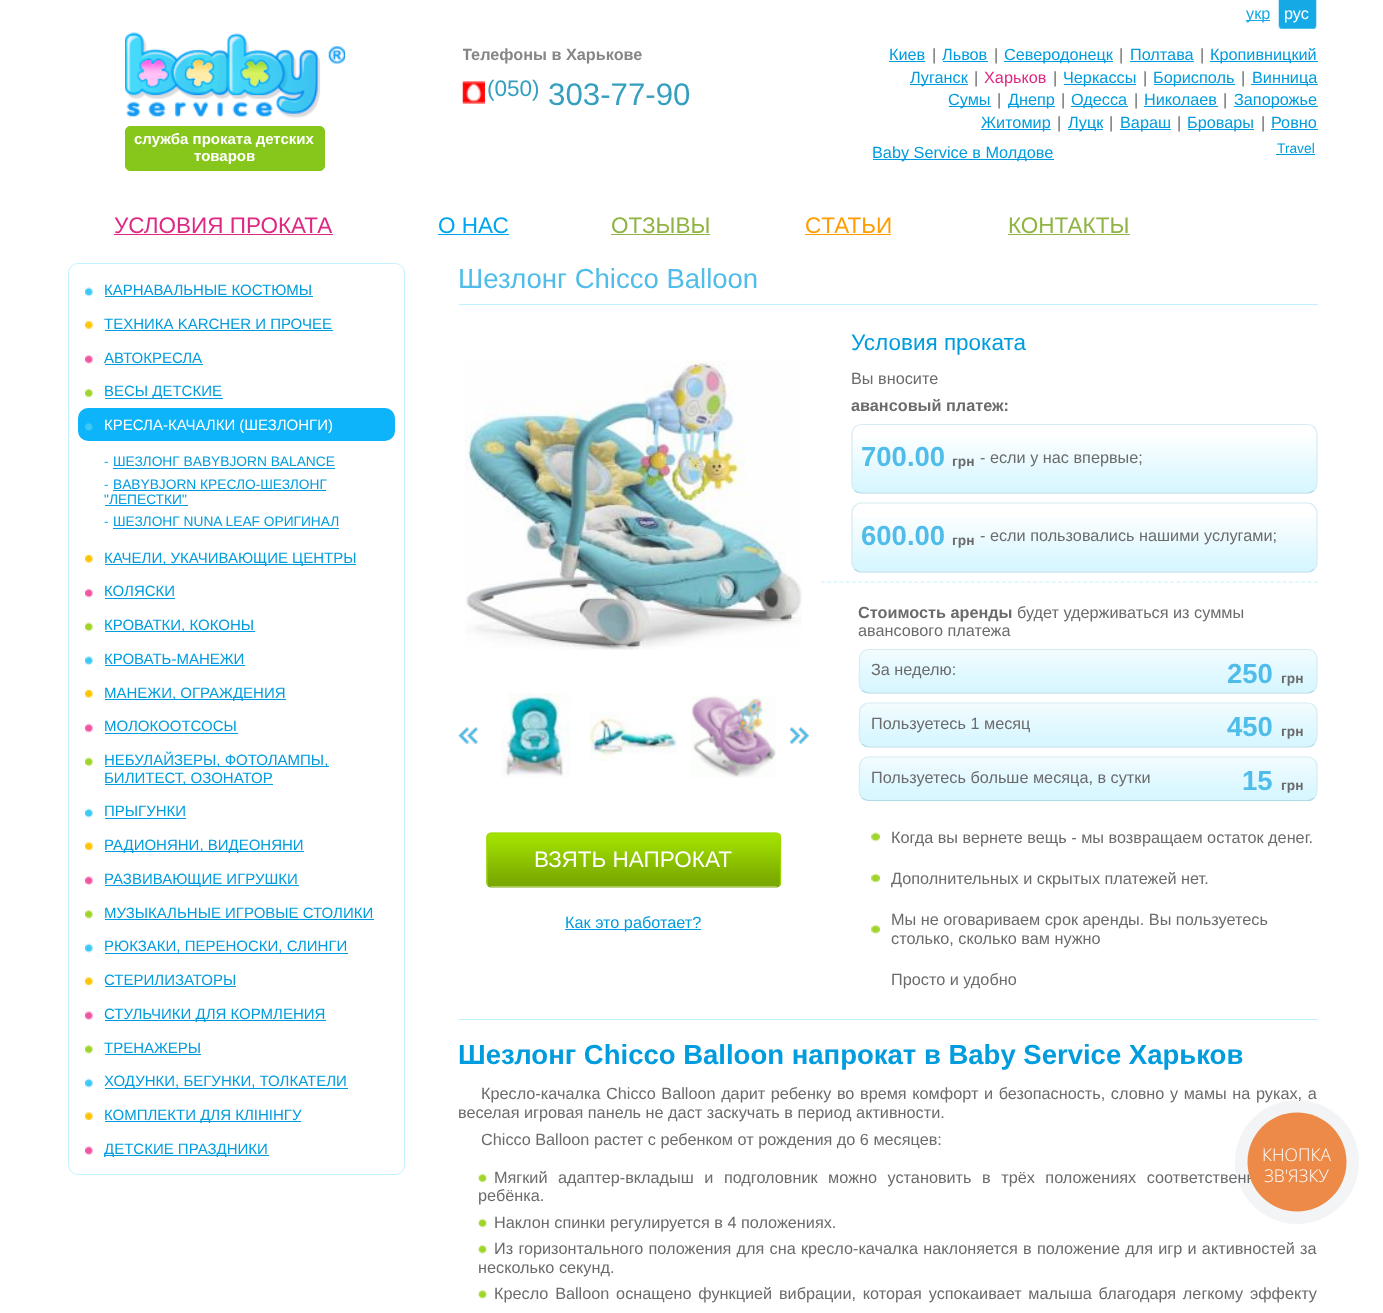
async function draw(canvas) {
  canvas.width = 1383
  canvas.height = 1313
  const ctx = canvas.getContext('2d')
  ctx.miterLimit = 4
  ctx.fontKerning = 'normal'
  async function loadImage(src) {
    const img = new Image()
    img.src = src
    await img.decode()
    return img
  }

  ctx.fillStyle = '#fff'
  ctx.fillRect(0, 0, 1383, 1313)
  ctx.fillStyle = '#15aae5'
  ctx.fillRect(1246, 20, 24, 1)
  ctx.font = '16.25px Liberation Sans'
  ctx.fillText('укр', 1246, 19)
  ctx.drawImage(await loadImage('image0.png'), 1278, 0, 39, 29)
  ctx.fillStyle = '#fff'
  ctx.fillText('рус', 1284, 19)
  ctx.save()
  ctx.beginPath()
  ctx.rect(463, 45, 227, 110)
  ctx.clip()
  ctx.font = 'bold 16.25px Liberation Sans'
  ctx.fillStyle = '#868686'
  ctx.fillText('Телефоны в Харькове', 462, 60)
  ctx.restore()
  ctx.drawImage(await loadImage('image1.png'), 462, 81, 23, 23)
  ctx.font = '22.5px Liberation Sans'
  ctx.fillStyle = '#359fbe'
  ctx.fillText('(050)', 487, 96)
  ctx.font = '31.25px Liberation Sans'
  ctx.fillText('303-77-90', 548, 105)
  ctx.font = '16.25px Liberation Sans'
  ctx.fillStyle = '#009cde'
  ctx.fillText('Киев', 889, 60)
  ctx.fillRect(889, 61, 36, 1)
  ctx.fillStyle = '#6b6b6b'
  ctx.fillText('|', 932, 60)
  ctx.fillStyle = '#009cde'
  ctx.fillText('Львов', 942, 60)
  ctx.fillRect(943, 61, 45, 1)
  ctx.fillStyle = '#6b6b6b'
  ctx.fillText('|', 994, 60)
  ctx.fillStyle = '#009cde'
  ctx.fillRect(1004, 61, 109, 1)
  ctx.fillText('Северодонецк', 1004, 60)
  ctx.fillStyle = '#6b6b6b'
  ctx.fillText('|', 1119, 60)
  ctx.fillStyle = '#009cde'
  ctx.fillText('Полтава', 1130, 60)
  ctx.fillRect(1130, 61, 64, 1)
  ctx.fillStyle = '#6b6b6b'
  ctx.fillText('|', 1200, 60)
  ctx.fillStyle = '#009cde'
  ctx.fillRect(1210, 61, 108, 1)
  ctx.fillText('Кропивницкий', 1210, 60)
  ctx.fillRect(910, 84, 58, 1)
  ctx.fillText('Луганск', 910, 83)
  ctx.fillStyle = '#6b6b6b'
  ctx.fillText('|', 974, 83)
  ctx.fillStyle = '#de2882'
  ctx.fillText('Харьков', 984, 83)
  ctx.fillStyle = '#6b6b6b'
  ctx.fillText('|', 1053, 83)
  ctx.fillStyle = '#009cde'
  ctx.fillRect(1064, 84, 72, 1)
  ctx.fillText('Черкассы', 1063, 83)
  ctx.fillStyle = '#6b6b6b'
  ctx.fillText('|', 1143, 83)
  ctx.fillStyle = '#009cde'
  ctx.fillRect(1154, 84, 81, 1)
  ctx.fillText('Борисполь', 1153, 83)
  ctx.fillStyle = '#6b6b6b'
  ctx.fillText('|', 1241, 83)
  ctx.fillStyle = '#009cde'
  ctx.fillRect(1251, 84, 67, 1)
  ctx.fillText('Винница', 1252, 83)
  ctx.fillRect(949, 106, 42, 1)
  ctx.fillText('Сумы', 948, 105)
  ctx.fillStyle = '#6b6b6b'
  ctx.fillText('|', 997, 105)
  ctx.fillStyle = '#009cde'
  ctx.fillRect(1008, 106, 47, 1)
  ctx.fillText('Днепр', 1008, 105)
  ctx.fillStyle = '#6b6b6b'
  ctx.fillText('|', 1061, 105)
  ctx.fillStyle = '#009cde'
  ctx.fillRect(1071, 106, 57, 1)
  ctx.fillText('Одесса', 1071, 105)
  ctx.fillStyle = '#6b6b6b'
  ctx.fillText('|', 1134, 105)
  ctx.fillStyle = '#009cde'
  ctx.fillText('Николаев', 1144, 105)
  ctx.fillRect(1144, 106, 74, 1)
  ctx.fillStyle = '#6b6b6b'
  ctx.fillText('|', 1223, 105)
  ctx.fillStyle = '#009cde'
  ctx.fillRect(1234, 106, 84, 1)
  ctx.fillText('Запорожье', 1234, 105)
  ctx.fillRect(981, 129, 70, 1)
  ctx.fillText('Житомир', 981, 128)
  ctx.fillStyle = '#6b6b6b'
  ctx.fillText('|', 1057, 128)
  ctx.fillStyle = '#009cde'
  ctx.fillRect(1068, 129, 35, 1)
  ctx.fillText('Луцк', 1068, 128)
  ctx.fillStyle = '#6b6b6b'
  ctx.fillText('|', 1109, 128)
  ctx.fillStyle = '#009cde'
  ctx.fillRect(1120, 129, 51, 1)
  ctx.fillText('Вараш', 1120, 128)
  ctx.fillStyle = '#6b6b6b'
  ctx.fillText('|', 1177, 128)
  ctx.fillStyle = '#009cde'
  ctx.fillRect(1188, 129, 66, 1)
  ctx.fillText('Бровары', 1187, 128)
  ctx.fillStyle = '#6b6b6b'
  ctx.fillText('|', 1261, 128)
  ctx.fillStyle = '#009cde'
  ctx.fillText('Ровно', 1271, 128)
  ctx.fillRect(1271, 129, 47, 1)
  ctx.fillRect(873, 159, 181, 1)
  ctx.fillText('Baby Service в Молдове', 872, 158)
  ctx.font = '13.75px Liberation Sans'
  ctx.fillText('Travel', 1277, 153)
  ctx.fillRect(1276, 154, 39, 1)
  ctx.drawImage(await loadImage('image2.png'), 125, 32, 220, 86)
  ctx.fillStyle = '#87c71b'
  ctx.beginPath()
  ctx.roundRect(125.5, 126.5, 199, 44, 4.5)
  ctx.fill()
  ctx.strokeStyle = '#87c71b'
  ctx.stroke()
  ctx.font = 'bold 15px Liberation Sans'
  ctx.fillStyle = '#fff'
  ctx.fillText('служба проката детских', 134, 144)
  ctx.fillText('товаров', 194, 161)
  ctx.font = '22.5px Liberation Sans'
  ctx.fillStyle = '#de2882'
  ctx.fillText('УСЛОВИЯ ПРОКАТА', 114, 233)
  ctx.fillRect(114, 234, 219, 1)
  ctx.fillStyle = '#00a6ed'
  ctx.fillText('О НАС', 438, 233)
  ctx.fillRect(438, 234, 71, 1)
  ctx.fillStyle = '#8fb443'
  ctx.fillText('ОТЗЫВЫ', 611, 233)
  ctx.fillRect(611, 234, 99, 1)
  ctx.fillStyle = '#ff9c00'
  ctx.fillText('CТАТЬИ', 805, 233)
  ctx.fillRect(805, 234, 86, 1)
  ctx.fillStyle = '#8fb443'
  ctx.fillText('КОНТАКТЫ', 1008, 233)
  ctx.fillRect(1008, 234, 122, 1)
  ctx.beginPath()
  ctx.roundRect(68.5, 263.5, 336, 911, 9.5)
  ctx.strokeStyle = '#c3f2ff'
  ctx.stroke()
  ctx.drawImage(await loadImage('image3.png'), 85, 287, 8, 10)
  ctx.font = '15px Liberation Sans'
  ctx.fillStyle = '#009cde'
  ctx.fillText('КАРНАВАЛЬНЫЕ КОСТЮМЫ', 104, 295)
  ctx.fillRect(105, 296, 208, 1)
  ctx.drawImage(await loadImage('image4.png'), 85, 321, 8, 8)
  ctx.fillText('ТЕХНИКА KARCHER И ПРОЧЕЕ', 104, 329)
  ctx.fillRect(105, 330, 228, 1)
  ctx.drawImage(await loadImage('image5.png'), 85, 355, 8, 9)
  ctx.fillText('АВТОКРЕСЛА', 104, 363)
  ctx.fillRect(105, 364, 98, 1)
  ctx.drawImage(await loadImage('image6.png'), 85, 388, 8, 10)
  ctx.fillRect(105, 398, 118, 1)
  ctx.fillText('ВЕСЫ ДЕТСКИЕ', 104, 396)
  ctx.fillStyle = '#0eb4f9'
  ctx.beginPath()
  ctx.roundRect(78, 408, 317, 33, 10)
  ctx.fill()
  ctx.drawImage(await loadImage('image7.png'), 85, 422, 8, 9)
  ctx.fillStyle = '#fff'
  ctx.fillText('КРЕСЛА-КАЧАЛКИ (ШЕЗЛОНГИ)', 104, 430)
  ctx.font = '13.75px Liberation Sans'
  ctx.fillStyle = '#0eb4f9'
  ctx.fillText('-', 104, 466)
  ctx.fillStyle = '#009cde'
  ctx.fillText('ШЕЗЛОНГ BABYBJORN BALANCE', 113, 466)
  ctx.fillRect(113, 468, 222, 1)
  ctx.fillStyle = '#0eb4f9'
  ctx.fillText('-', 104, 489)
  ctx.fillStyle = '#009cde'
  ctx.fillText('BABYBJORN КРЕСЛО-ШЕЗЛОНГ', 113, 489)
  ctx.fillRect(113, 490, 213, 1)
  ctx.fillText('"ЛЕПЕСТКИ"', 104, 504)
  ctx.fillRect(105, 505, 83, 1)
  ctx.fillStyle = '#0eb4f9'
  ctx.fillText('-', 104, 526)
  ctx.fillStyle = '#009cde'
  ctx.fillText('ШЕЗЛОНГ NUNA LEAF ОРИГИНАЛ', 113, 526)
  ctx.fillRect(113, 528, 226, 1)
  ctx.drawImage(await loadImage('image8.png'), 85, 555, 8, 8)
  ctx.fillRect(105, 564, 251, 1)
  ctx.font = '15px Liberation Sans'
  ctx.fillText('КАЧЕЛИ, УКАЧИВАЮЩИЕ ЦЕНТРЫ', 104, 563)
  ctx.drawImage(await loadImage('image9.png'), 85, 588, 8, 10)
  ctx.fillText('КОЛЯСКИ', 104, 596)
  ctx.fillRect(105, 598, 70, 1)
  ctx.drawImage(await loadImage('image10.png'), 85, 622, 8, 10)
  ctx.fillRect(105, 631, 150, 1)
  ctx.fillText('КРОВАТКИ, КОКОНЫ', 104, 630)
  ctx.drawImage(await loadImage('image11.png'), 85, 656, 8, 9)
  ctx.fillText('КРОВАТЬ-МАНЕЖИ', 104, 664)
  ctx.fillRect(105, 665, 140, 1)
  ctx.drawImage(await loadImage('image8.png'), 85, 690, 8, 8)
  ctx.fillRect(105, 699, 181, 1)
  ctx.fillText('МАНЕЖИ, ОГРАЖДЕНИЯ', 104, 698)
  ctx.drawImage(await loadImage('image9.png'), 85, 723, 8, 10)
  ctx.fillText('МОЛОКООТСОСЫ', 104, 731)
  ctx.fillRect(105, 733, 133, 1)
  ctx.drawImage(await loadImage('image10.png'), 85, 757, 8, 10)
  ctx.fillRect(105, 766, 224, 1)
  ctx.fillText('НЕБУЛАЙЗЕРЫ, ФОТОЛАМПЫ,', 104, 765)
  ctx.fillRect(105, 784, 168, 1)
  ctx.fillText('БИЛИТЕСТ, ОЗОНАТОР', 104, 783)
  ctx.drawImage(await loadImage('image12.png'), 85, 808, 8, 10)
  ctx.fillText('ПРЫГУНКИ', 104, 816)
  ctx.fillRect(105, 818, 81, 1)
  ctx.drawImage(await loadImage('image13.png'), 85, 842, 8, 8)
  ctx.fillRect(105, 851, 199, 1)
  ctx.fillText('РАДИОНЯНИ, ВИДЕОНЯНИ', 104, 850)
  ctx.drawImage(await loadImage('image14.png'), 85, 876, 8, 9)
  ctx.fillRect(105, 885, 194, 1)
  ctx.fillText('РАЗВИВАЮЩИЕ ИГРУШКИ', 104, 884)
  ctx.drawImage(await loadImage('image15.png'), 85, 910, 8, 9)
  ctx.fillText('МУЗЫКАЛЬНЫЕ ИГРОВЫЕ СТОЛИКИ', 104, 918)
  ctx.fillRect(105, 919, 269, 1)
  ctx.drawImage(await loadImage('image12.png'), 85, 943, 8, 10)
  ctx.fillText('РЮКЗАКИ, ПЕРЕНОСКИ, СЛИНГИ', 104, 951)
  ctx.fillRect(105, 953, 243, 1)
  ctx.drawImage(await loadImage('image13.png'), 85, 977, 8, 8)
  ctx.fillText('СТЕРИЛИЗАТОРЫ', 104, 985)
  ctx.fillRect(105, 986, 131, 1)
  ctx.drawImage(await loadImage('image14.png'), 85, 1011, 8, 9)
  ctx.fillRect(105, 1020, 221, 1)
  ctx.fillText('СТУЛЬЧИКИ ДЛЯ КОРМЛЕНИЯ', 104, 1019)
  ctx.drawImage(await loadImage('image15.png'), 85, 1045, 8, 9)
  ctx.fillText('ТРЕНАЖЕРЫ', 104, 1053)
  ctx.fillRect(105, 1054, 96, 1)
  ctx.drawImage(await loadImage('image12.png'), 85, 1078, 8, 10)
  ctx.fillRect(105, 1088, 243, 1)
  ctx.fillText('ХОДУНКИ, БЕГУНКИ, ТОЛКАТЕЛИ', 104, 1086)
  ctx.drawImage(await loadImage('image13.png'), 85, 1112, 8, 8)
  ctx.fillRect(105, 1121, 196, 1)
  ctx.fillText('КОМПЛЕКТИ ДЛЯ КЛІНІНГУ', 104, 1120)
  ctx.drawImage(await loadImage('image14.png'), 85, 1146, 8, 9)
  ctx.fillRect(105, 1155, 164, 1)
  ctx.fillText('ДЕТСКИЕ ПРАЗДНИКИ', 104, 1154)
  ctx.fillStyle = '#c1f1ff'
  ctx.fillRect(459, 304, 859, 1)
  ctx.font = '27.5px Liberation Sans'
  ctx.fillStyle = '#4fbce9'
  ctx.fillText('Шезлонг Chicco Balloon', 458, 288)
  ctx.drawImage(await loadImage('image16.png'), 465, 361, 337, 289)
  ctx.drawImage(await loadImage('image17.png'), 501, 693, 70, 85)
  ctx.drawImage(await loadImage('image18.png'), 589, 712, 88, 49)
  ctx.drawImage(await loadImage('image19.png'), 691, 695, 85, 83)
  ctx.drawImage(await loadImage('image20.png'), 458, 727, 20, 17)
  ctx.drawImage(await loadImage('image21.png'), 790, 727, 19, 17)
  ctx.drawImage(await loadImage('image22.png'), 486, 832, 296, 55)
  ctx.beginPath()
  ctx.moveTo(779.5, 885.5)
  ctx.bezierCurveTo(778.5, 886.5, 777.5, 887, 776, 887)
  ctx.lineTo(491, 887)
  ctx.bezierCurveTo(490, 887, 489, 886.5, 488, 885.5)
  ctx.strokeStyle = '#79a800'
  ctx.lineWidth = 1.2
  ctx.stroke()
  ctx.beginPath()
  ctx.moveTo(488, 885.5)
  ctx.bezierCurveTo(487.5, 885, 487, 883.5, 487, 882.5)
  ctx.lineTo(487, 837.5)
  ctx.bezierCurveTo(487, 836.5, 487.5, 835, 488, 834.5)
  ctx.bezierCurveTo(489, 833.5, 490, 833, 491, 833)
  ctx.lineTo(776, 833)
  ctx.bezierCurveTo(777.5, 833, 778.5, 833.5, 779.5, 834.5)
  ctx.bezierCurveTo(780, 835, 780.5, 836.5, 780.5, 837.5)
  ctx.lineTo(780.5, 882.5)
  ctx.bezierCurveTo(780.5, 883.5, 780, 885, 779.5, 885.5)
  ctx.strokeStyle = '#9cd800'
  ctx.stroke()
  ctx.font = '22.5px Liberation Sans'
  ctx.fillStyle = '#fff'
  ctx.fillText('ВЗЯТЬ НАПРОКАТ', 534, 867)
  ctx.fillStyle = '#009cde'
  ctx.fillRect(565, 929, 136, 1)
  ctx.font = '16.25px Liberation Sans'
  ctx.fillText('Как это работает?', 565, 928)
  ctx.beginPath()
  ctx.moveTo(821, 582)
  ctx.lineTo(1317.5, 582)
  ctx.strokeStyle = '#c1f1ff'
  ctx.setLineDash([3.75, 2.49])
  ctx.stroke()
  ctx.font = '22.5px Liberation Sans'
  ctx.fillText('Условия проката', 851, 350)
  ctx.font = '16.25px Liberation Sans'
  ctx.fillStyle = '#6b6b6b'
  ctx.fillText('Вы вносите', 851, 384)
  ctx.font = 'bold 16.25px Liberation Sans'
  ctx.fillText('авансовый платеж:', 851, 411)
  ctx.drawImage(await loadImage('image23.png'), 851, 438, 467, 55)
  ctx.beginPath()
  ctx.moveTo(1314, 490.5)
  ctx.bezierCurveTo(1312.5, 492, 1310, 493, 1307.5, 493)
  ctx.lineTo(861, 493)
  ctx.bezierCurveTo(859, 493, 856.5, 492, 854.5, 490.5)
  ctx.strokeStyle = '#afdbe7'
  ctx.setLineDash([])
  ctx.stroke()
  ctx.beginPath()
  ctx.moveTo(854.5, 490.5)
  ctx.bezierCurveTo(853, 488.5, 852, 486, 852, 484)
  ctx.lineTo(852, 434)
  ctx.bezierCurveTo(852, 431.5, 853, 429, 854.5, 427)
  ctx.bezierCurveTo(856.5, 425.5, 859, 424.5, 861, 424.5)
  ctx.lineTo(1307.5, 424.5)
  ctx.bezierCurveTo(1310, 424.5, 1312.5, 425.5, 1314, 427)
  ctx.bezierCurveTo(1316, 429, 1317, 431.5, 1317, 434)
  ctx.lineTo(1317, 484)
  ctx.bezierCurveTo(1317, 486, 1316, 488.5, 1314, 490.5)
  ctx.strokeStyle = '#d6ecf2'
  ctx.stroke()
  ctx.font = 'bold 27.5px Liberation Sans'
  ctx.fillStyle = '#4fbce9'
  ctx.fillText('700.00', 861, 466)
  ctx.font = 'bold 13.75px Liberation Sans'
  ctx.fillStyle = '#6b6b6b'
  ctx.fillText('грн', 952, 466)
  ctx.font = '16.25px Liberation Sans'
  ctx.fillText('- если у нас впервые;', 980, 463)
  ctx.drawImage(await loadImage('image24.png'), 851, 517, 467, 55)
  ctx.beginPath()
  ctx.moveTo(1314, 569)
  ctx.bezierCurveTo(1312.5, 571, 1310, 572, 1307.5, 572)
  ctx.lineTo(861, 572)
  ctx.bezierCurveTo(859, 572, 856.5, 571, 854.5, 569)
  ctx.strokeStyle = '#afdbe7'
  ctx.stroke()
  ctx.beginPath()
  ctx.moveTo(854.5, 569)
  ctx.bezierCurveTo(853, 567.5, 852, 565, 852, 562.5)
  ctx.lineTo(852, 512.5)
  ctx.bezierCurveTo(852, 510, 853, 507.5, 854.5, 506)
  ctx.bezierCurveTo(856.5, 504, 859, 503, 861, 503)
  ctx.lineTo(1307.5, 503)
  ctx.bezierCurveTo(1310, 503, 1312.5, 504, 1314, 506)
  ctx.bezierCurveTo(1316, 507.5, 1317, 510, 1317, 512.5)
  ctx.lineTo(1317, 562.5)
  ctx.bezierCurveTo(1317, 565, 1316, 567.5, 1314, 569)
  ctx.strokeStyle = '#d6ecf2'
  ctx.stroke()
  ctx.font = 'bold 27.5px Liberation Sans'
  ctx.fillStyle = '#4fbce9'
  ctx.fillText('600.00', 861, 545)
  ctx.font = 'bold 13.75px Liberation Sans'
  ctx.fillStyle = '#6b6b6b'
  ctx.fillText('грн', 952, 545)
  ctx.font = '16.25px Liberation Sans'
  ctx.fillText('- если пользовались нашими услугами;', 980, 541)
  ctx.font = 'bold 16.25px Liberation Sans'
  ctx.fillText('Стоимость аренды', 858, 618)
  ctx.font = '16.25px Liberation Sans'
  ctx.fillText('будет удерживаться из суммы', 1017, 618)
  ctx.fillText('авансового платежа', 858, 636)
  ctx.drawImage(await loadImage('image25.png'), 859, 649, 459, 44)
  ctx.beginPath()
  ctx.moveTo(1314, 690.5)
  ctx.bezierCurveTo(1312.5, 692, 1310, 693, 1307.5, 693)
  ctx.lineTo(869, 693)
  ctx.bezierCurveTo(866.5, 693, 864, 692, 862, 690.5)
  ctx.strokeStyle = '#afdbe7'
  ctx.stroke()
  ctx.beginPath()
  ctx.moveTo(862, 690.5)
  ctx.bezierCurveTo(857.5, 686, 859.5, 677, 859.5, 671)
  ctx.lineTo(859.5, 658)
  ctx.bezierCurveTo(860, 653, 864, 649.5, 869, 649.5)
  ctx.lineTo(1307.5, 649.5)
  ctx.bezierCurveTo(1312.5, 649.5, 1316.5, 653, 1317, 658)
  ctx.lineTo(1317, 671)
  ctx.bezierCurveTo(1317, 677, 1318.5, 686, 1314, 690.5)
  ctx.strokeStyle = '#d6ecf2'
  ctx.stroke()
  ctx.fillText('За неделю:', 871, 675)
  ctx.font = 'bold 27.5px Liberation Sans'
  ctx.fillStyle = '#4fbce9'
  ctx.fillText('250', 1227, 683)
  ctx.font = 'bold 13.75px Liberation Sans'
  ctx.fillStyle = '#6b6b6b'
  ctx.fillText('грн', 1281, 683)
  ctx.drawImage(await loadImage('image26.png'), 859, 703, 459, 44)
  ctx.beginPath()
  ctx.moveTo(1314, 744)
  ctx.bezierCurveTo(1312.5, 746, 1310, 747, 1307.5, 747)
  ctx.lineTo(869, 747)
  ctx.bezierCurveTo(866.5, 747, 864, 746, 862, 744)
  ctx.strokeStyle = '#afdbe7'
  ctx.stroke()
  ctx.beginPath()
  ctx.moveTo(862, 744)
  ctx.bezierCurveTo(857.5, 739.5, 859.5, 730.5, 859.5, 725)
  ctx.lineTo(859.5, 711.5)
  ctx.bezierCurveTo(860, 707, 864, 703, 869, 703)
  ctx.lineTo(1307.5, 703)
  ctx.bezierCurveTo(1312.5, 703, 1316.5, 707, 1317, 711.5)
  ctx.lineTo(1317, 725)
  ctx.bezierCurveTo(1317, 730.5, 1318.5, 739.5, 1314, 744)
  ctx.strokeStyle = '#d6ecf2'
  ctx.stroke()
  ctx.font = '16.25px Liberation Sans'
  ctx.fillText('Пользуетесь 1 месяц', 871, 729)
  ctx.font = 'bold 27.5px Liberation Sans'
  ctx.fillStyle = '#4fbce9'
  ctx.fillText('450', 1227, 736)
  ctx.font = 'bold 13.75px Liberation Sans'
  ctx.fillStyle = '#6b6b6b'
  ctx.fillText('грн', 1281, 736)
  ctx.drawImage(await loadImage('image27.png'), 859, 756, 459, 44)
  ctx.beginPath()
  ctx.moveTo(1314, 798)
  ctx.bezierCurveTo(1312.5, 799.5, 1310, 800.5, 1307.5, 800.5)
  ctx.lineTo(869, 800.5)
  ctx.bezierCurveTo(866.5, 800.5, 864, 799.5, 862, 798)
  ctx.strokeStyle = '#afdbe7'
  ctx.stroke()
  ctx.beginPath()
  ctx.moveTo(862, 798)
  ctx.bezierCurveTo(857.5, 793.5, 859.5, 784.5, 859.5, 779)
  ctx.lineTo(859.5, 765.5)
  ctx.bezierCurveTo(860, 760.5, 864, 757, 869, 757)
  ctx.lineTo(1307.5, 757)
  ctx.bezierCurveTo(1312.5, 757, 1316.5, 760.5, 1317, 765.5)
  ctx.lineTo(1317, 779)
  ctx.bezierCurveTo(1317, 784.5, 1318.5, 793.5, 1314, 798)
  ctx.strokeStyle = '#d6ecf2'
  ctx.stroke()
  ctx.font = '16.25px Liberation Sans'
  ctx.fillText('Пользуетесь больше месяца, в сутки', 871, 783)
  ctx.font = 'bold 27.5px Liberation Sans'
  ctx.fillStyle = '#4fbce9'
  ctx.fillText('15', 1242, 790)
  ctx.font = 'bold 13.75px Liberation Sans'
  ctx.fillStyle = '#6b6b6b'
  ctx.fillText('грн', 1281, 790)
  ctx.drawImage(await loadImage('image28.png'), 871, 832, 9, 10)
  ctx.font = '16.25px Liberation Sans'
  ctx.fillText('Когда вы вернете вещь - мы возвращаем остаток денег.', 891, 843)
  ctx.drawImage(await loadImage('image29.png'), 871, 873, 9, 10)
  ctx.fillText('Дополнительных и скрытых платежей нет.', 891, 884)
  ctx.drawImage(await loadImage('image30.png'), 871, 925, 9, 9)
  ctx.fillText('Мы не оговариваем срок аренды. Вы пользуетесь', 891, 925)
  ctx.fillText('столько, сколько вам нужно', 891, 944)
  ctx.fillText('Просто и удобно', 891, 985)
  ctx.fillStyle = '#c1f1ff'
  ctx.fillRect(459, 1019, 859, 1)
  ctx.font = 'bold 27.5px Liberation Sans'
  ctx.fillStyle = '#009cde'
  ctx.fillText('Шезлонг Chicco Balloon напрокат в Baby Service Харьков', 458, 1064)
  ctx.wordSpacing = '1.1px'
  ctx.font = '16.25px Liberation Sans'
  ctx.fillStyle = '#6b6b6b'
  ctx.fillText('Кресло-качалка Chicco Balloon дарит ребенку во время комфорт и безопасность, словно у мамы на руках, а', 481, 1099)
  ctx.wordSpacing = '0px'
  ctx.fillText('веселая игровая панель не даст заскучать в период активности.', 458, 1118)
  ctx.fillText('Chicco Balloon растет с ребенком от рождения до 6 месяцев:', 481, 1145)
  ctx.drawImage(await loadImage('image31.png'), 478, 1173, 9, 10)
  ctx.wordSpacing = '6px'
  ctx.fillText('Мягкий адаптер-вкладыш и подголовник можно установить в трёх положениях соответственн', 494, 1183)
  ctx.wordSpacing = '0px'
  ctx.fillText('ребёнка.', 478, 1201)
  ctx.drawImage(await loadImage('image32.png'), 478, 1218, 9, 10)
  ctx.fillText('Наклон спинки регулируется в 4 положениях.', 494, 1228)
  ctx.drawImage(await loadImage('image33.png'), 478, 1245, 9, 9)
  ctx.wordSpacing = '0.75px'
  ctx.fillText('Из горизонтального положения для сна кресло-качалка наклоняется в положение для игр и активностей за', 494, 1254)
  ctx.wordSpacing = '0px'
  ctx.fillText('несколько секунд.', 478, 1273)
  ctx.drawImage(await loadImage('image33.png'), 478, 1290, 9, 9)
  ctx.wordSpacing = '2.25px'
  ctx.fillText('Кресло Balloon оснащено функцией вибрации, которая успокаивает малыша благодаря легкому эффекту', 494, 1299)
  ctx.fillStyle = '#2a405d0f'
  ctx.beginPath()
  ctx.arc(1297, 1162, 62, 0, 2 * Math.PI)
  ctx.fill()
  ctx.fillStyle = '#ed8a47'
  ctx.beginPath()
  ctx.arc(1297, 1162, 49.5, 0, 2 * Math.PI)
  ctx.fill()
  ctx.wordSpacing = '0px'
  ctx.font = '300 17.5px Open Sans'
  ctx.fillStyle = '#fff'
  ctx.fillText('КНОПКА', 1262, 1161)
  ctx.fillText('ЗВ\'ЯЗКУ', 1264, 1182)
}

draw(document.querySelector('canvas'))
